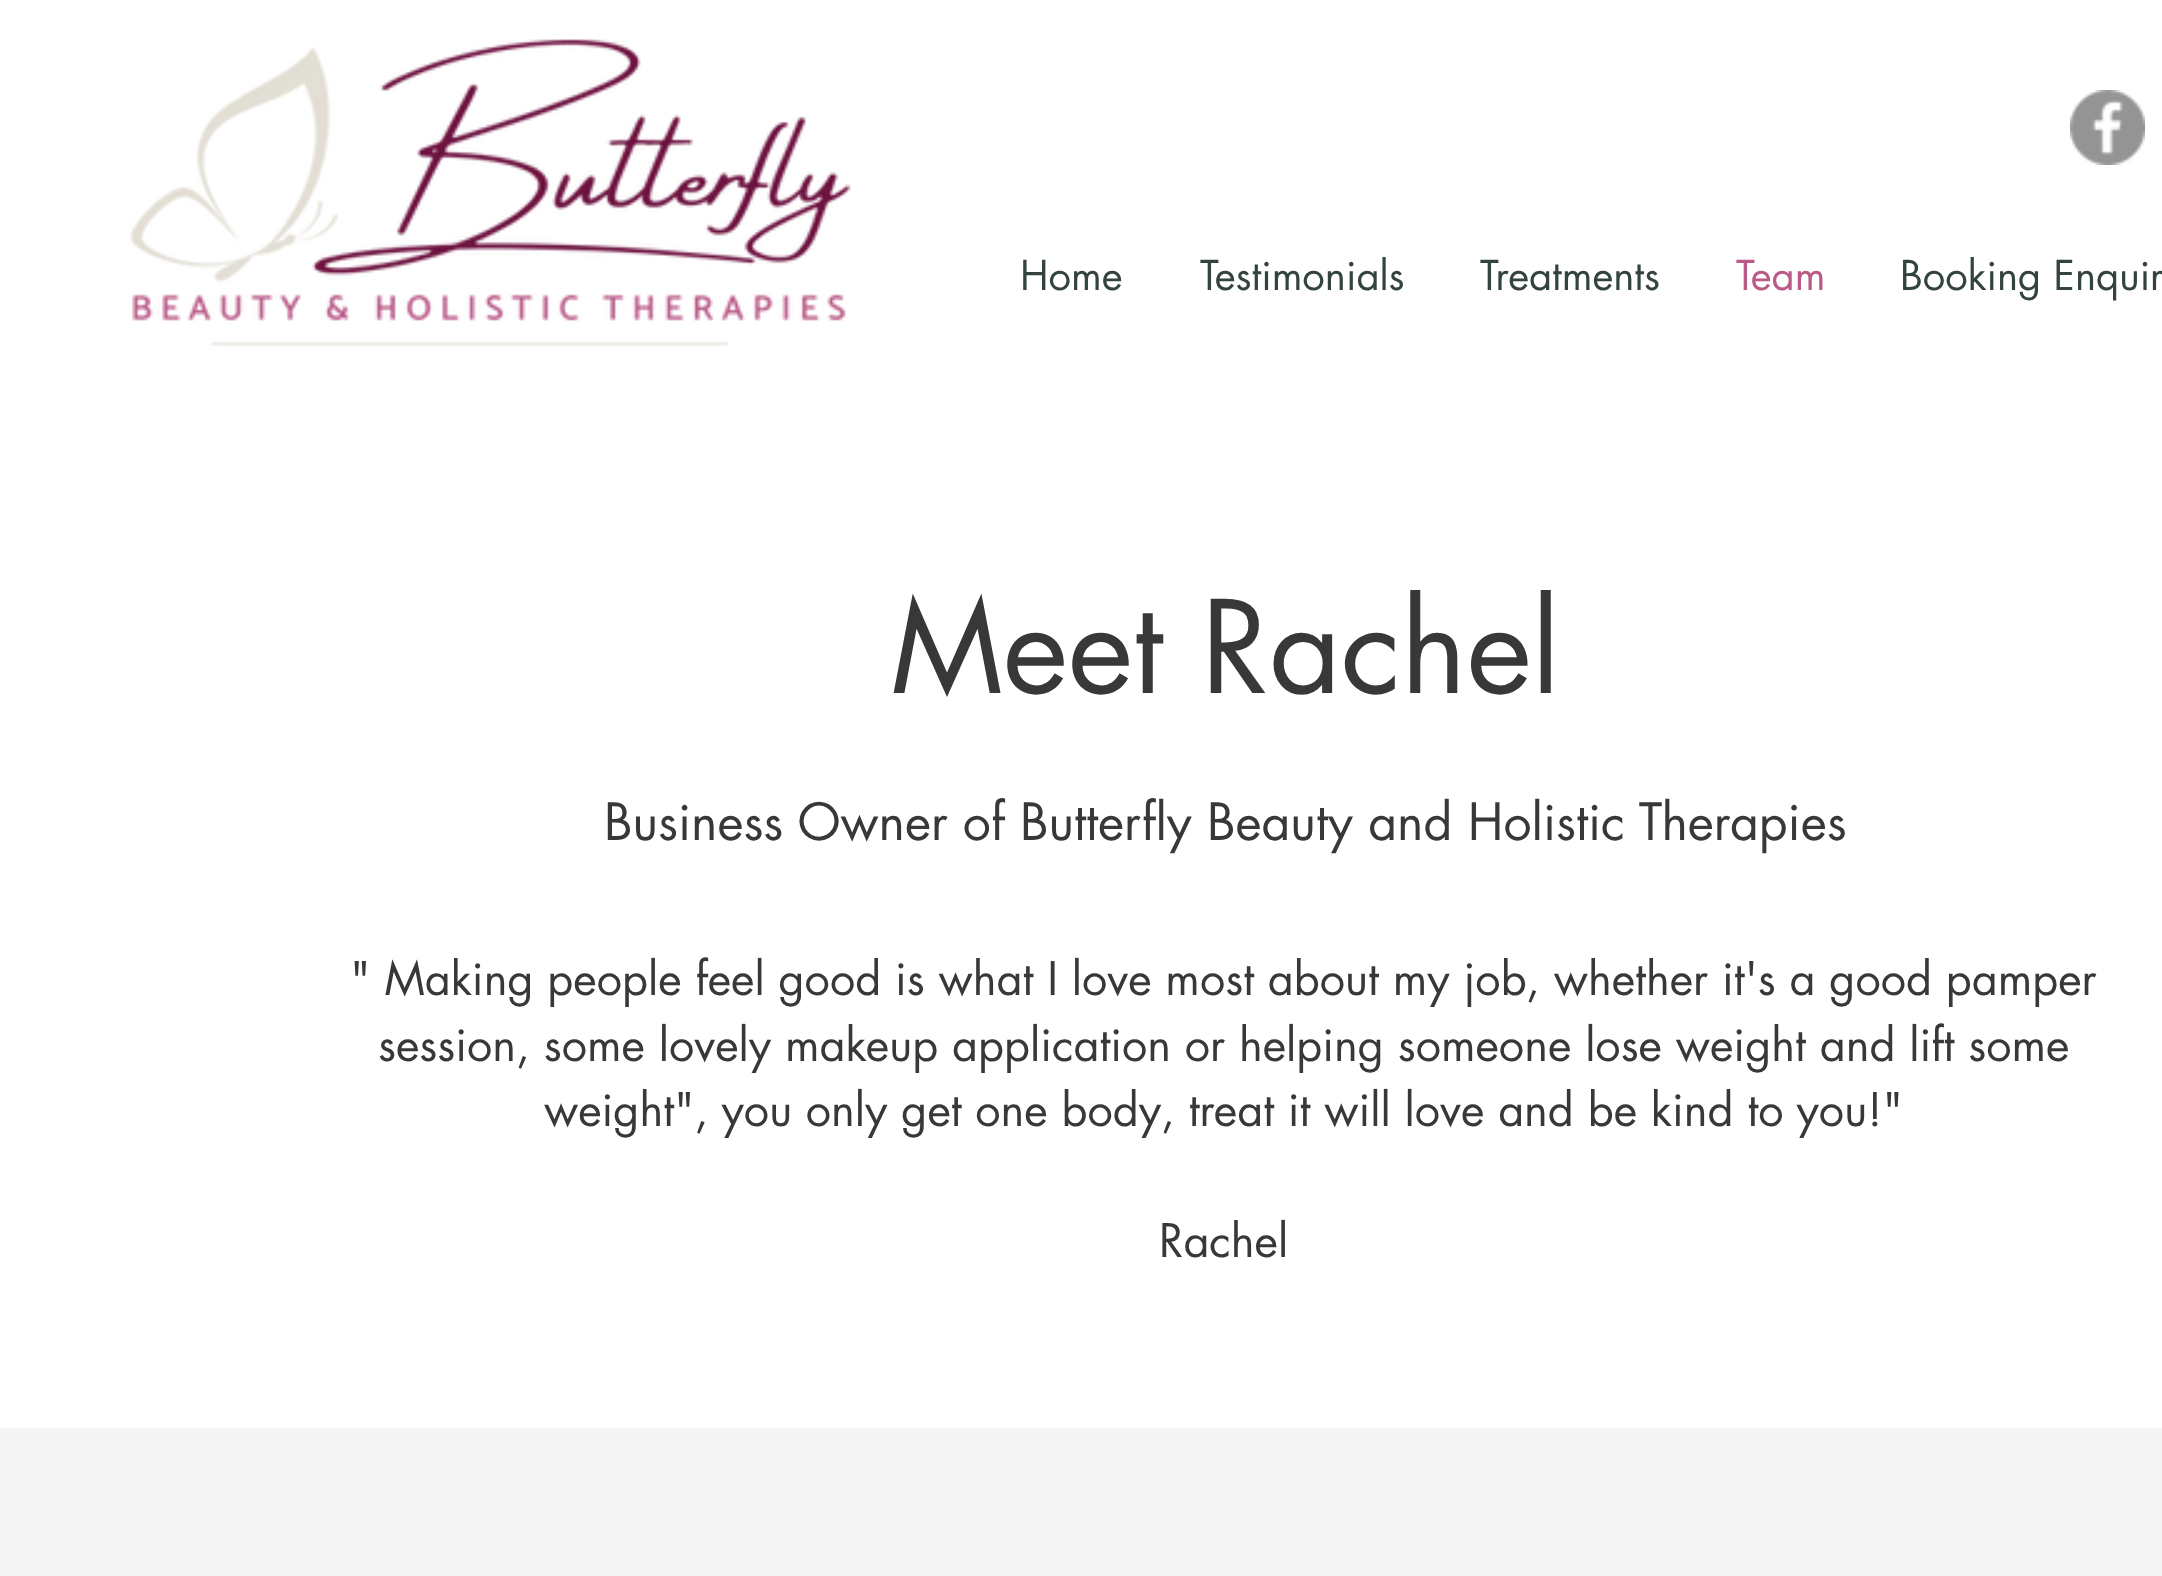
async function draw(canvas) {
  canvas.width = 2162
  canvas.height = 1576
  const ctx = canvas.getContext('2d')
  ctx.miterLimit = 4
  ctx.fontKerning = 'normal'
  async function loadImage(src) {
    const img = new Image()
    img.src = src
    await img.decode()
    return img
  }

  ctx.fillStyle = '#fff'
  ctx.fillRect(0, 0, 2162, 1576)
  ctx.drawImage(await loadImage('image0.png'), 129, 39, 722, 308)
  ctx.drawImage(await loadImage('image1.png'), 2070, 90, 75, 75)
  ctx.font = '40px futura'
  ctx.fillStyle = '#33443c'
  ctx.fillText('Home', 1020, 290)
  ctx.fillText('Testimonials', 1200, 290)
  ctx.fillText('Treatments', 1480, 290)
  ctx.fillStyle = '#ba5a87'
  ctx.fillText('Team', 1736, 290)
  ctx.fillStyle = '#33443c'
  ctx.fillText('Booking Enquir', 1900, 290)
  ctx.font = '125px futura'
  ctx.fillStyle = '#383838'
  ctx.fillText('Meet Rachel', 891, 693)
  ctx.font = '50px futura'
  ctx.fillText('Business Owner of Butterfly Beauty and Holistic Therapies', 604, 840)
  ctx.font = '45px futura'
  ctx.fillText('" Making people feel good is what I love most about my job, whether it\'s a good pamper', 350, 995)
  ctx.fillText('session, some lovely makeup application or helping someone lose weight and lift some', 378, 1061)
  ctx.fillText('weight", you only get one body, treat it will love and be kind to you!"', 544, 1126)
  ctx.fillText('Rachel', 1159, 1257)
  ctx.fillStyle = '#f5f5f5'
  ctx.fillRect(0, 1428, 2162, 148)
}

draw(document.querySelector('canvas'))
